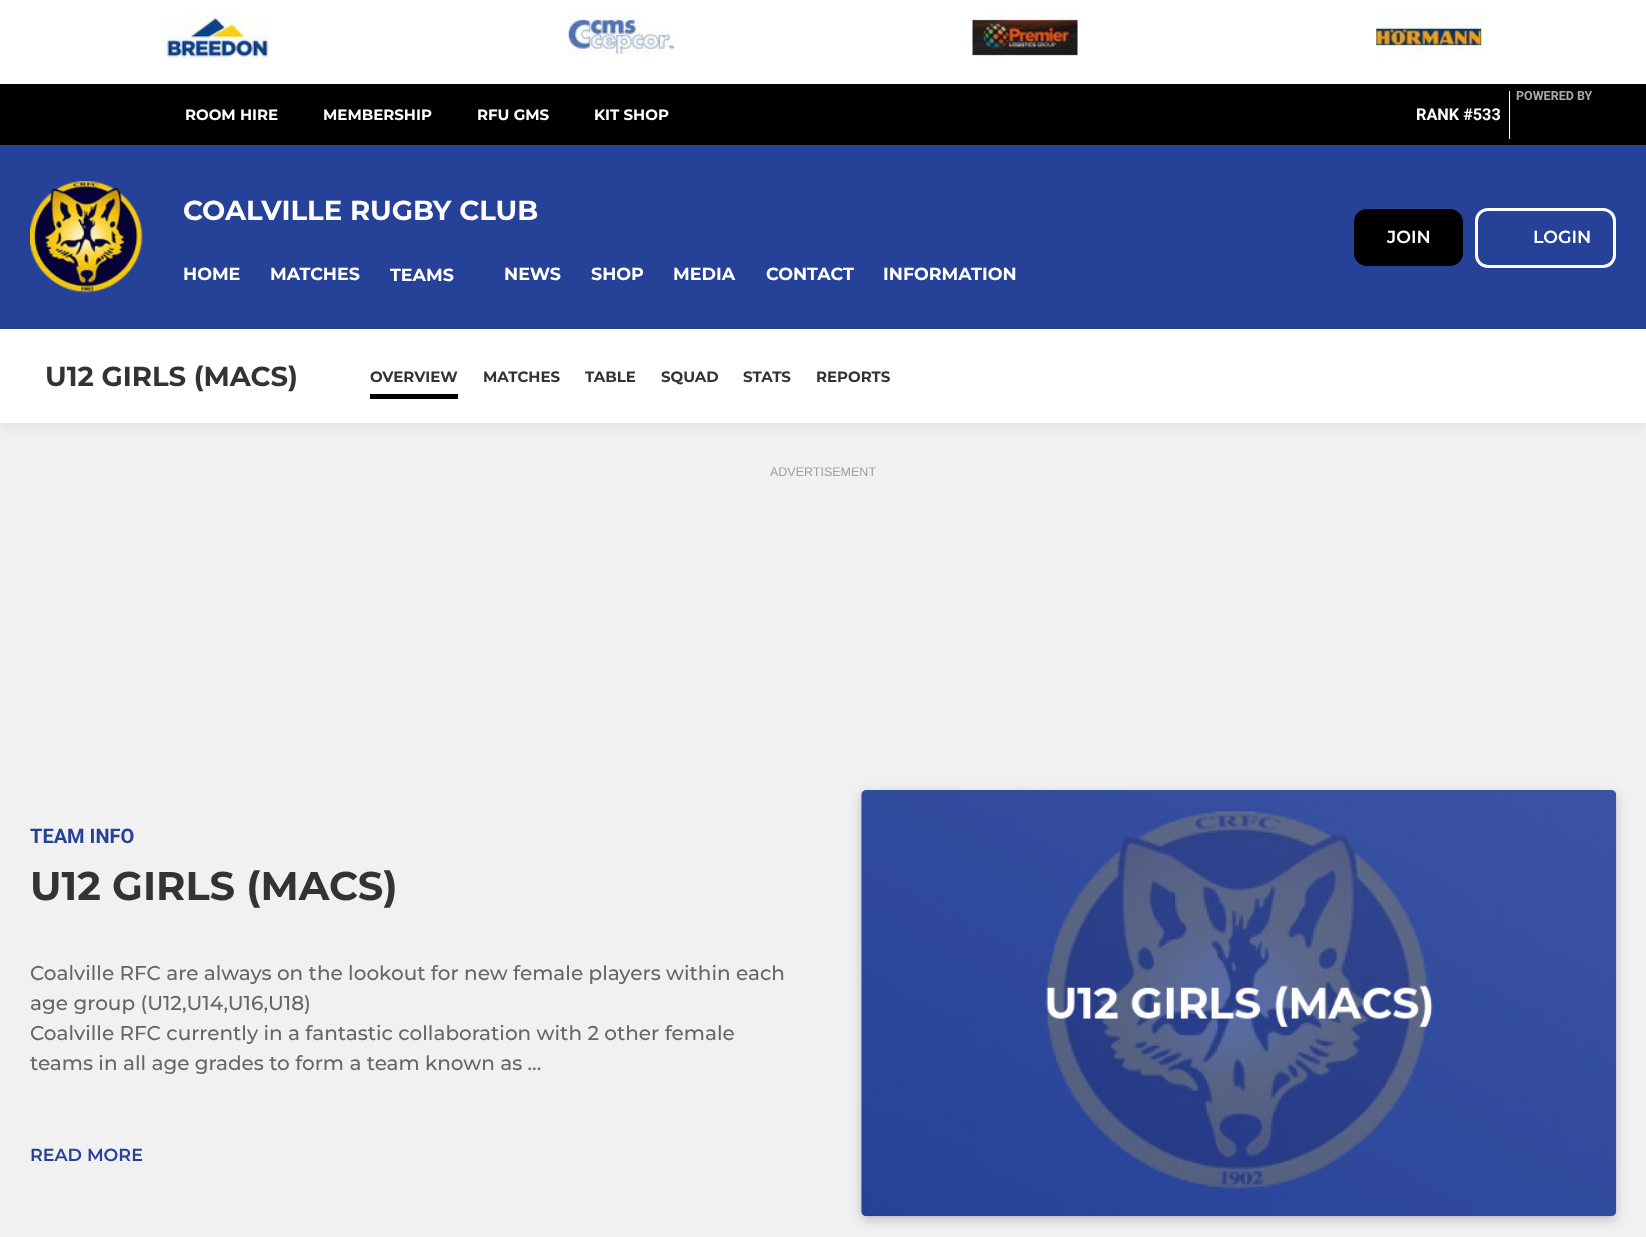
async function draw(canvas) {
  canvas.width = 1646
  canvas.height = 1237
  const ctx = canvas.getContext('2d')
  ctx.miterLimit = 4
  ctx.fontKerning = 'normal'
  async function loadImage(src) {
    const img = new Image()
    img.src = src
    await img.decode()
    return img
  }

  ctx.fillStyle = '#f1f1f1'
  ctx.fillRect(0, 0, 1646, 1237)
  ctx.fillStyle = '#264198'
  ctx.fillRect(0, 145, 1646, 184)
  ctx.fillStyle = '#fff'
  ctx.fillRect(0, 0, 1646, 84)
  ctx.drawImage(await loadImage('image0.png'), 165, 15, 105, 45)
  ctx.drawImage(await loadImage('image1.png'), 568, 15, 106, 41)
  ctx.drawImage(await loadImage('image2.png'), 972, 15, 106, 41)
  ctx.drawImage(await loadImage('image3.png'), 1376, 15, 106, 41)
  ctx.fillStyle = '#000'
  ctx.fillRect(0, 84, 1646, 61)
  ctx.font = 'bold 15px Montserrat'
  ctx.fillStyle = '#fff'
  ctx.fillText('ROOM HIRE', 185, 120)
  ctx.fillText('MEMBERSHIP', 323, 120)
  ctx.fillText('RFU GMS', 477, 120)
  ctx.fillText('KIT SHOP', 594, 120)
  ctx.fillRect(1509, 91, 1, 48)
  ctx.font = 'bold 12.5px Roboto'
  ctx.fillStyle = '#ababab'
  ctx.fillText('POWERED BY', 1516, 100)
  ctx.font = 'bold 16.25px Roboto'
  ctx.fillStyle = '#fff'
  ctx.fillText('RANK #533', 1416, 120)
  ctx.drawImage(await loadImage('image4.png'), 30, 181, 113, 112)
  ctx.font = 'bold 27.5px Montserrat'
  ctx.fillText('COALVILLE RUGBY CLUB', 183, 220)
  ctx.font = 'bold 17.5px Montserrat'
  ctx.fillText('HOME', 183, 280)
  ctx.fillText('MATCHES', 270, 280)
  ctx.fillText('TEAMS', 390, 281)
  ctx.fillText('NEWS', 504, 280)
  ctx.fillText('SHOP', 591, 280)
  ctx.fillText('MEDIA', 673, 280)
  ctx.fillText('CONTACT', 766, 280)
  ctx.fillText('INFORMATION', 883, 280)
  ctx.fillStyle = '#000'
  ctx.beginPath()
  ctx.roundRect(1355.5, 210.5, 106, 54, 11.5)
  ctx.fill()
  ctx.strokeStyle = '#000'
  ctx.lineWidth = 3
  ctx.stroke()
  ctx.font = '600 17.5px Montserrat'
  ctx.fillStyle = '#fff'
  ctx.fillText('JOIN', 1387, 243)
  ctx.beginPath()
  ctx.roundRect(1476.5, 209.5, 138, 57, 11.5)
  ctx.strokeStyle = '#fff'
  ctx.stroke()
  ctx.fillText('LOGIN', 1533, 243)
  ctx.fillStyle = '#0000000d'
  ctx.filter = 'blur(6px)'
  ctx.beginPath()
  ctx.rect(0, 335, 1646, 94)
  ctx.fill()
  ctx.filter = 'none'
  ctx.fillStyle = '#fff'
  ctx.fillRect(0, 329, 1646, 94)
  ctx.font = 'bold 27.5px Montserrat'
  ctx.fillStyle = '#333'
  ctx.fillText('U12 GIRLS (MACS)', 45, 386)
  ctx.font = 'bold 15px Montserrat'
  ctx.fillText('OVERVIEW', 370, 382)
  ctx.fillStyle = '#000'
  ctx.fillRect(370, 394, 88, 5)
  ctx.fillStyle = '#333'
  ctx.fillText('MATCHES', 483, 382)
  ctx.fillText('TABLE', 585, 382)
  ctx.fillText('SQUAD', 661, 382)
  ctx.fillText('STATS', 743, 382)
  ctx.fillText('REPORTS', 816, 382)
  ctx.font = '12.5px Liberation Sans'
  ctx.fillStyle = '#9f9f9f'
  ctx.fillText('ADVERTISEMENT', 770, 476)
  ctx.font = 'bold 20px Roboto'
  ctx.fillStyle = '#264198'
  ctx.fillText('TEAM INFO', 30, 843)
  ctx.font = 'bold 40px Montserrat'
  ctx.fillStyle = '#333'
  ctx.fillText('U12 GIRLS (MACS)', 30, 900)
  ctx.font = '500 20px Montserrat'
  ctx.fillStyle = '#666'
  ctx.fillText('Coalville RFC are always on the lookout for new female players within each', 30, 980)
  ctx.fillText('age group (U12,U14,U16,U18)', 30, 1010)
  ctx.fillText('Coalville RFC currently in a fantastic collaboration with 2 other female', 30, 1040)
  ctx.fillText('teams in all age grades to form a team known as ...', 30, 1070)
  ctx.font = '600 17.5px Montserrat'
  ctx.fillStyle = '#264198'
  ctx.fillText('READ MORE', 30, 1161)
  ctx.fillStyle = '#00000033'
  ctx.filter = 'blur(6px)'
  ctx.beginPath()
  ctx.roundRect(861, 794, 755, 426, 5)
  ctx.fill()
  ctx.filter = 'none'
  ctx.drawImage(await loadImage('image5.png'), 861, 790, 756, 427)
}

draw(document.querySelector('canvas'))
